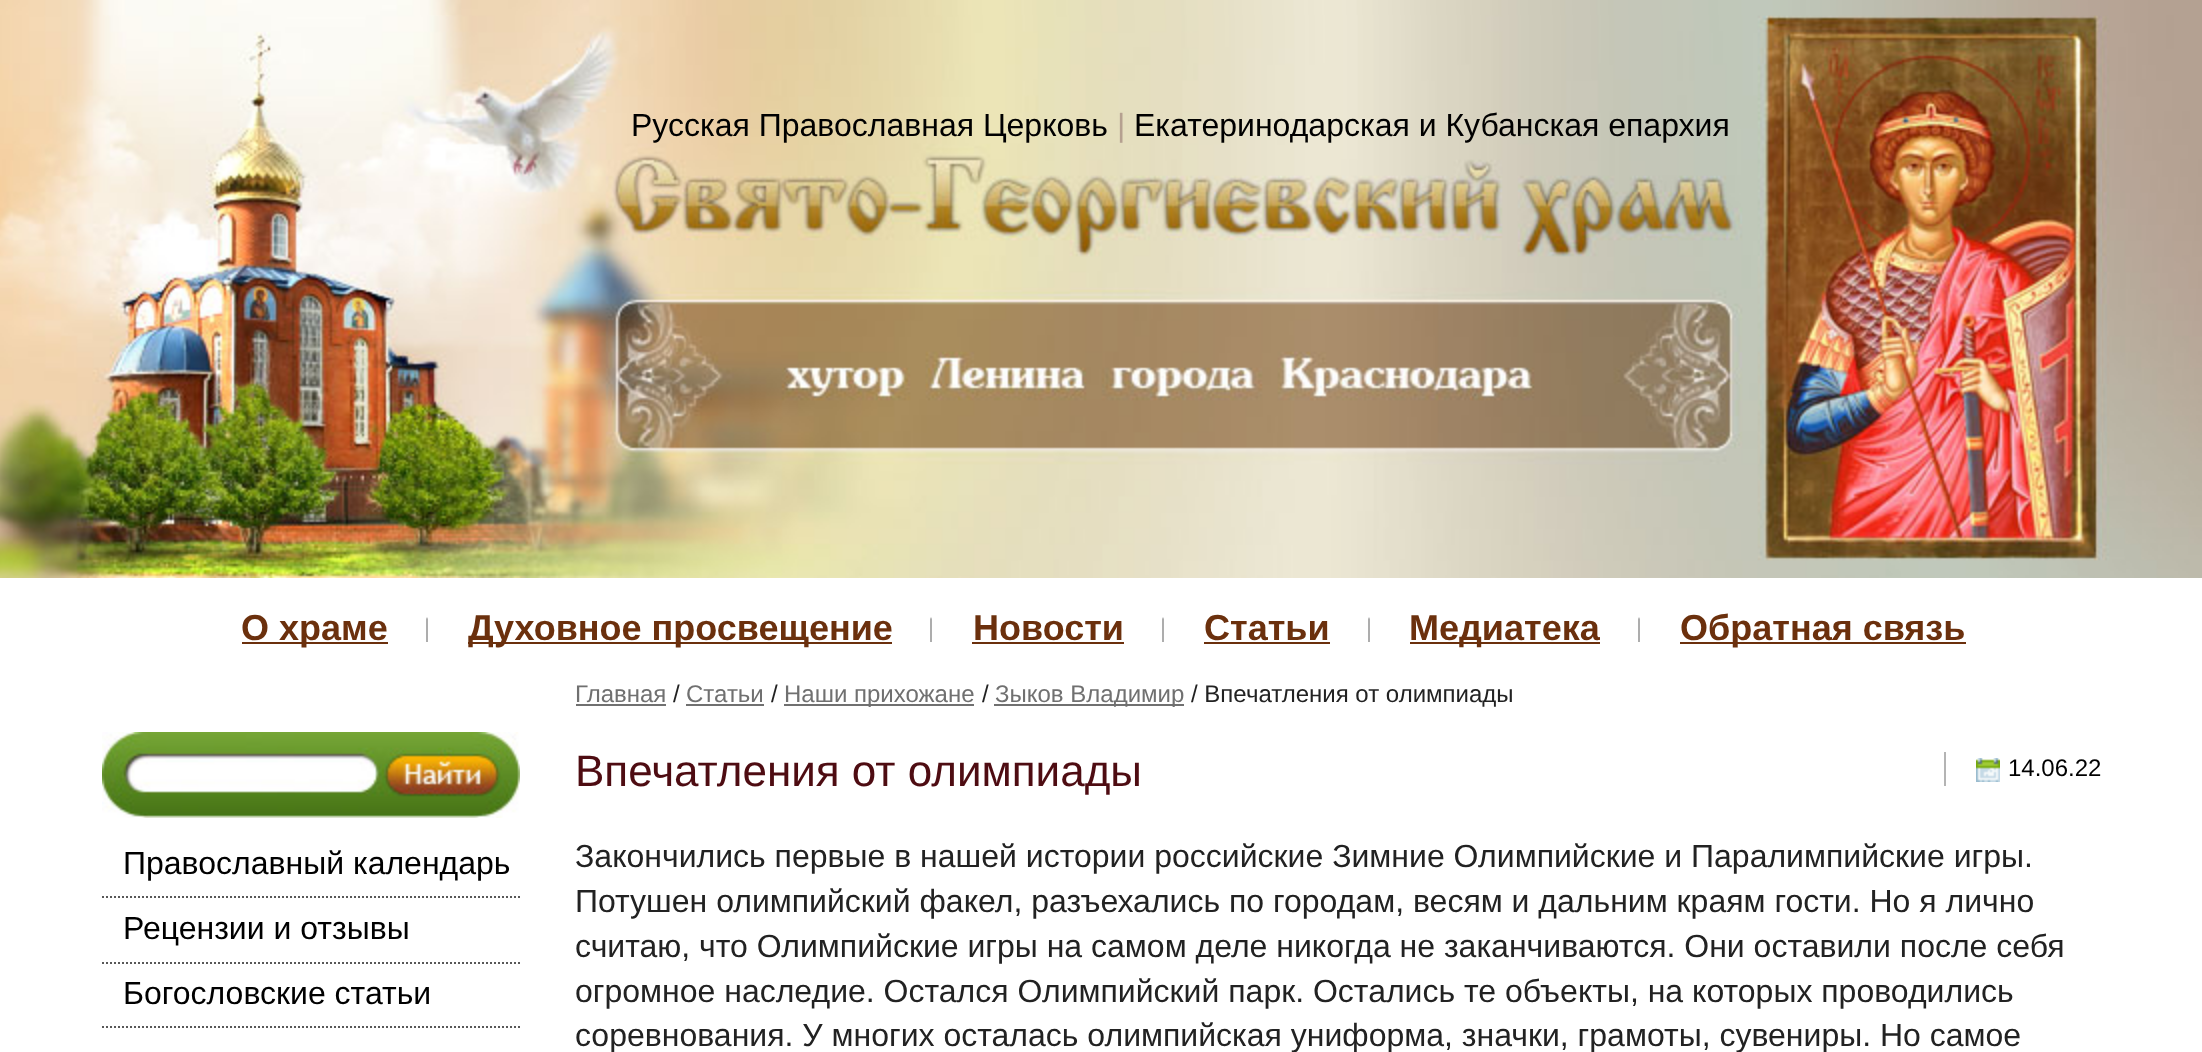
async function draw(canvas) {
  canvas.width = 2202
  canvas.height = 1052
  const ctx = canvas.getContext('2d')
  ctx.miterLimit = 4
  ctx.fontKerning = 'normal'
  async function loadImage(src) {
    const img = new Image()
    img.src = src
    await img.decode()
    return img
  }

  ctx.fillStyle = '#fff'
  ctx.fillRect(0, 0, 2202, 1052)
  ctx.drawImage(await loadImage('image0.png'), 0, 0, 2202, 578)
  ctx.drawImage(await loadImage('image1.png'), 102, 15, 2000, 563)
  ctx.font = '32px Liberation Sans'
  ctx.fillStyle = '#000'
  ctx.fillText('Русская Православная Церковь', 631, 136)
  ctx.fillStyle = '#b5a090'
  ctx.fillText('|', 1117, 136)
  ctx.fillStyle = '#000'
  ctx.fillText('Екатеринодарская и Кубанская епархия', 1134, 136)
  ctx.drawImage(await loadImage('image2.png'), 426, 617, 2, 25)
  ctx.fillStyle = '#6b300d'
  ctx.fillRect(242, 642, 146, 2)
  ctx.font = 'bold 36px Liberation Sans'
  ctx.fillText('О храме', 241, 640)
  ctx.drawImage(await loadImage('image2.png'), 930, 617, 2, 25)
  ctx.fillRect(468, 642, 424, 2)
  ctx.fillText('Духовное просвещение', 468, 640)
  ctx.drawImage(await loadImage('image2.png'), 1162, 617, 2, 25)
  ctx.fillText('Новости', 973, 640)
  ctx.fillRect(972, 642, 152, 2)
  ctx.drawImage(await loadImage('image2.png'), 1368, 617, 2, 25)
  ctx.fillText('Статьи', 1204, 640)
  ctx.fillRect(1204, 642, 126, 2)
  ctx.drawImage(await loadImage('image2.png'), 1638, 617, 2, 25)
  ctx.fillRect(1410, 642, 190, 2)
  ctx.fillText('Медиатека', 1409, 640)
  ctx.fillRect(1680, 642, 286, 2)
  ctx.fillText('Обратная связь', 1680, 640)
  ctx.drawImage(await loadImage('image3.png'), 102, 732, 418, 86)
  ctx.beginPath()
  ctx.moveTo(102, 897)
  ctx.lineTo(520, 897)
  ctx.strokeStyle = '#585858'
  ctx.lineWidth = 2
  ctx.setLineDash([2, 2])
  ctx.stroke()
  ctx.font = '32px Liberation Sans'
  ctx.fillStyle = '#000'
  ctx.fillText('Православный календарь', 123, 874)
  ctx.beginPath()
  ctx.moveTo(102, 963)
  ctx.lineTo(520, 963)
  ctx.stroke()
  ctx.fillText('Рецензии и отзывы', 123, 939)
  ctx.beginPath()
  ctx.moveTo(102, 1027)
  ctx.lineTo(520, 1027)
  ctx.stroke()
  ctx.fillText('Богословские статьи', 123, 1004)
  ctx.font = '24px Liberation Sans'
  ctx.fillStyle = '#707070'
  ctx.fillText('Главная', 575, 702)
  ctx.fillRect(576, 704, 90, 2)
  ctx.fillStyle = '#222'
  ctx.fillText('/', 673, 702)
  ctx.fillStyle = '#707070'
  ctx.fillText('Статьи', 686, 702)
  ctx.fillRect(686, 704, 78, 2)
  ctx.fillStyle = '#222'
  ctx.fillText('/', 771, 702)
  ctx.fillStyle = '#707070'
  ctx.fillRect(784, 704, 190, 2)
  ctx.fillText('Наши прихожане', 784, 702)
  ctx.fillStyle = '#222'
  ctx.fillText('/', 982, 702)
  ctx.fillStyle = '#707070'
  ctx.fillRect(994, 704, 190, 2)
  ctx.fillText('Зыков Владимир', 995, 702)
  ctx.fillStyle = '#222'
  ctx.fillText('/ Впечатления от олимпиады', 1191, 702)
  ctx.font = '44px Liberation Sans'
  ctx.fillStyle = '#4e0c12'
  ctx.fillText('Впечатления от олимпиады', 575, 786)
  ctx.fillStyle = '#b4b4b4'
  ctx.fillRect(1944, 752, 2, 34)
  ctx.drawImage(await loadImage('image4.png'), 1976, 758, 24, 24)
  ctx.font = '24px Liberation Sans'
  ctx.fillStyle = '#000'
  ctx.fillText('14.06.22', 2008, 776)
  ctx.font = '32px Liberation Sans'
  ctx.fillStyle = '#222'
  ctx.fillText('Закончились первые в нашей истории российские Зимние Олимпийские и Паралимпийские игры.', 575, 867)
  ctx.fillText('Потушен олимпийский факел, разъехались по городам, весям и дальним краям гости. Но я лично', 575, 912)
  ctx.fillText('считаю, что Олимпийские игры на самом деле никогда не заканчиваются. Они оставили после себя', 575, 957)
  ctx.fillText('огромное наследие. Остался Олимпийский парк. Остались те объекты, на которых проводились', 575, 1002)
  ctx.fillText('соревнования. У многих осталась олимпийская униформа, значки, грамоты, сувениры. Но самое', 575, 1046)
}

draw(document.querySelector('canvas'))
